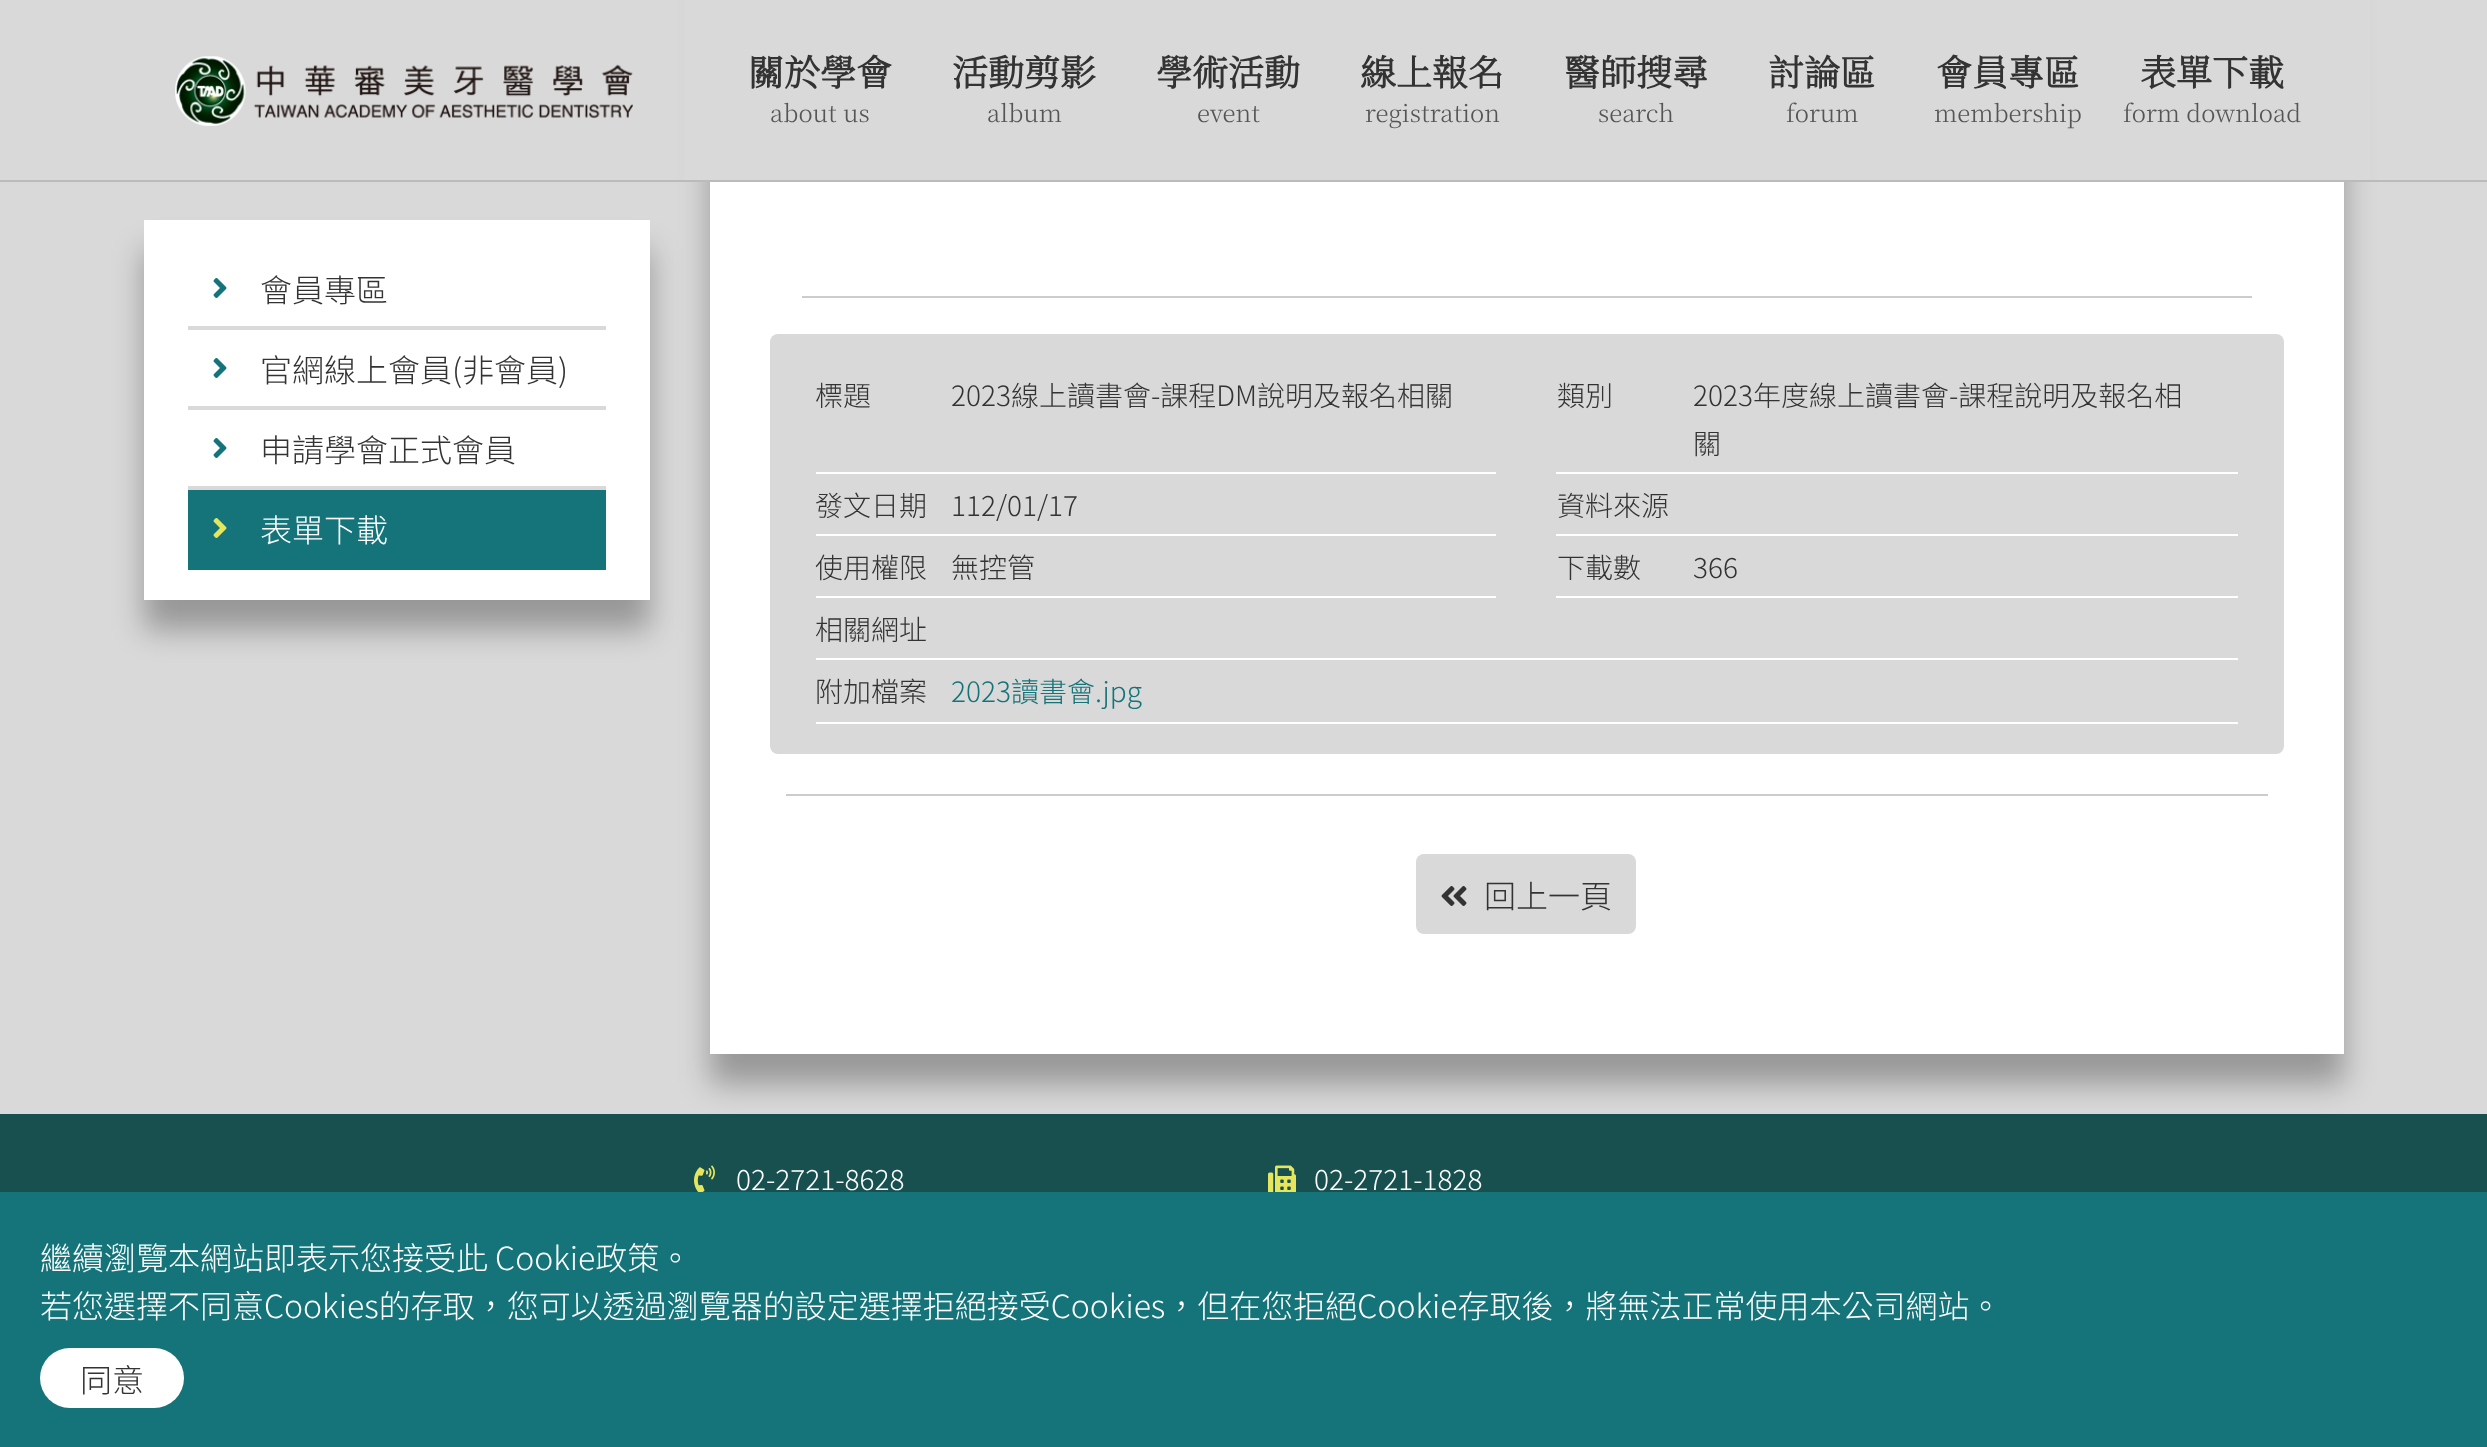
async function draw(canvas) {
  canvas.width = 2487
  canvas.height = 1447
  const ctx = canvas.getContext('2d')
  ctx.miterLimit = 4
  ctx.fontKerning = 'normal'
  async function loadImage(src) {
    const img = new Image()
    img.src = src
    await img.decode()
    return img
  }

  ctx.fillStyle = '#d9d9d9'
  ctx.fillRect(0, 0, 2487, 1447)
  ctx.fillStyle = '#185050'
  ctx.fillRect(0, 1114, 2487, 78)
  ctx.fillStyle = '#0000004d'
  ctx.filter = 'blur(15px)'
  ctx.beginPath()
  ctx.rect(710, -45, 1634, 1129)
  ctx.fill()
  ctx.filter = 'none'
  ctx.fillStyle = '#d9d9d9'
  ctx.fillRect(684, 0, 1686, 180)
  ctx.fillStyle = '#bbb'
  ctx.fillRect(0, 180, 2487, 2)
  ctx.drawImage(await loadImage('image0.png'), 175, 56, 458, 70)
  ctx.font = 'bold 36px Noto Serif TC'
  ctx.fillStyle = '#333'
  ctx.fillText('關於學會', 748, 86)
  ctx.font = '200 24px Noto Serif TC'
  ctx.fillStyle = '#555'
  ctx.fillText('about us', 770, 122)
  ctx.font = 'bold 36px Noto Serif TC'
  ctx.fillStyle = '#333'
  ctx.fillText('活動剪影', 952, 86)
  ctx.font = '200 24px Noto Serif TC'
  ctx.fillStyle = '#555'
  ctx.fillText('album', 987, 122)
  ctx.font = 'bold 36px Noto Serif TC'
  ctx.fillStyle = '#333'
  ctx.fillText('學術活動', 1156, 86)
  ctx.font = '200 24px Noto Serif TC'
  ctx.fillStyle = '#555'
  ctx.fillText('event', 1197, 122)
  ctx.font = 'bold 36px Noto Serif TC'
  ctx.fillStyle = '#333'
  ctx.fillText('線上報名', 1360, 86)
  ctx.font = '200 24px Noto Serif TC'
  ctx.fillStyle = '#555'
  ctx.fillText('registration', 1365, 122)
  ctx.font = 'bold 36px Noto Serif TC'
  ctx.fillStyle = '#333'
  ctx.fillText('醫師搜尋', 1564, 86)
  ctx.font = '200 24px Noto Serif TC'
  ctx.fillStyle = '#555'
  ctx.fillText('search', 1598, 122)
  ctx.font = 'bold 36px Noto Serif TC'
  ctx.fillStyle = '#333'
  ctx.fillText('討論區', 1768, 86)
  ctx.font = '200 24px Noto Serif TC'
  ctx.fillStyle = '#555'
  ctx.fillText('forum', 1786, 122)
  ctx.font = 'bold 36px Noto Serif TC'
  ctx.fillStyle = '#333'
  ctx.fillText('會員專區', 1936, 86)
  ctx.font = '200 24px Noto Serif TC'
  ctx.fillStyle = '#555'
  ctx.fillText('membership', 1934, 122)
  ctx.font = 'bold 36px Noto Serif TC'
  ctx.fillStyle = '#333'
  ctx.fillText('表單下載', 2140, 86)
  ctx.font = '200 24px Noto Serif TC'
  ctx.fillStyle = '#555'
  ctx.fillText('form download', 2123, 122)
  ctx.fillStyle = '#0000004d'
  ctx.filter = 'blur(15px)'
  ctx.beginPath()
  ctx.rect(144, 250, 506, 380)
  ctx.fill()
  ctx.filter = 'none'
  ctx.fillStyle = '#fff'
  ctx.fillRect(144, 220, 506, 380)
  ctx.drawImage(await loadImage('image1.png'), 213, 278, 14, 20)
  ctx.font = '100 32px Noto Sans TC'
  ctx.fillStyle = '#333'
  ctx.fillText('會員專區', 260, 302)
  ctx.fillStyle = '#d9d9d9'
  ctx.fillRect(188, 326, 418, 4)
  ctx.drawImage(await loadImage('image1.png'), 213, 358, 14, 20)
  ctx.fillStyle = '#333'
  ctx.fillText('官網線上會員(非會員)', 260, 382)
  ctx.fillStyle = '#d9d9d9'
  ctx.fillRect(188, 406, 418, 4)
  ctx.drawImage(await loadImage('image1.png'), 213, 438, 14, 20)
  ctx.fillStyle = '#333'
  ctx.fillText('申請學會正式會員', 260, 462)
  ctx.fillStyle = '#d9d9d9'
  ctx.fillRect(188, 486, 418, 4)
  ctx.fillStyle = '#147479'
  ctx.fillRect(188, 490, 418, 80)
  ctx.drawImage(await loadImage('image2.png'), 213, 518, 14, 20)
  ctx.fillStyle = '#fff'
  ctx.fillText('表單下載', 260, 542)
  ctx.fillRect(710, 182, 1634, 872)
  ctx.fillStyle = '#d9d9d9'
  ctx.beginPath()
  ctx.roundRect(770, 334, 1514, 420, 8)
  ctx.fill()
  ctx.fillStyle = '#ccc'
  ctx.fillRect(802, 296, 1450, 2)
  ctx.font = '100 28px Noto Sans TC'
  ctx.fillStyle = '#333'
  ctx.fillText('標題', 815, 406)
  ctx.fillText('2023線上讀書會-課程DM說明及報名相關', 951, 406)
  ctx.fillStyle = '#fff'
  ctx.fillRect(816, 472, 680, 2)
  ctx.fillStyle = '#333'
  ctx.fillText('類別', 1557, 406)
  ctx.fillText('2023年度線上讀書會-課程說明及報名相', 1693, 406)
  ctx.fillText('關', 1693, 454)
  ctx.fillStyle = '#fff'
  ctx.fillRect(1556, 472, 682, 2)
  ctx.fillStyle = '#333'
  ctx.fillText('發文日期', 815, 516)
  ctx.fillText('112/01/17', 951, 516)
  ctx.fillStyle = '#fff'
  ctx.fillRect(816, 534, 680, 2)
  ctx.fillStyle = '#333'
  ctx.fillText('資料來源', 1557, 516)
  ctx.fillStyle = '#fff'
  ctx.fillRect(1556, 534, 682, 2)
  ctx.fillStyle = '#333'
  ctx.fillText('使用權限', 815, 578)
  ctx.fillText('無控管', 951, 578)
  ctx.fillStyle = '#fff'
  ctx.fillRect(816, 596, 680, 2)
  ctx.fillStyle = '#333'
  ctx.fillText('下載數', 1557, 578)
  ctx.fillText('366', 1693, 578)
  ctx.fillStyle = '#fff'
  ctx.fillRect(1556, 596, 682, 2)
  ctx.fillStyle = '#333'
  ctx.fillText('相關網址', 815, 640)
  ctx.fillStyle = '#fff'
  ctx.fillRect(816, 658, 1422, 2)
  ctx.fillStyle = '#333'
  ctx.fillText('附加檔案', 815, 702)
  ctx.fillStyle = '#147479'
  ctx.fillText('2023讀書會.jpg', 951, 702)
  ctx.fillStyle = '#fff'
  ctx.fillRect(816, 722, 1422, 2)
  ctx.fillStyle = '#ccc'
  ctx.fillRect(786, 794, 1482, 2)
  ctx.fillStyle = '#d9d9d9'
  ctx.beginPath()
  ctx.roundRect(1416, 854, 220, 80, 8)
  ctx.fill()
  ctx.drawImage(await loadImage('image3.png'), 1441, 886, 26, 20)
  ctx.font = '100 32px Noto Sans TC'
  ctx.fillStyle = '#333'
  ctx.fillText('回上一頁', 1484, 908)
  ctx.drawImage(await loadImage('image4.png'), 694, 1165, 21, 27)
  ctx.font = '100 28px Noto Sans TC'
  ctx.fillStyle = '#fff'
  ctx.fillText('02-2721-8628', 736, 1190)
  ctx.drawImage(await loadImage('image5.png'), 1268, 1165, 28, 27)
  ctx.fillText('02-2721-1828', 1314, 1190)
  ctx.fillStyle = '#147479'
  ctx.fillRect(0, 1192, 2487, 255)
  ctx.font = '100 32px Noto Sans TC'
  ctx.fillStyle = '#fff'
  ctx.fillText('繼續瀏覽本網站即表示您接受此 Cookie政策。', 40, 1270)
  ctx.fillText('若您選擇不同意Cookies的存取，您可以透過瀏覽器的設定選擇拒絕接受Cookies，但在您拒絕Cookie存取後，將無法正常使用本公司網站。', 40, 1318)
  ctx.beginPath()
  ctx.roundRect(40, 1348, 144, 60, 30)
  ctx.fill()
  ctx.fillStyle = '#333'
  ctx.fillText('同意', 80, 1392)
}

draw(document.querySelector('canvas'))
